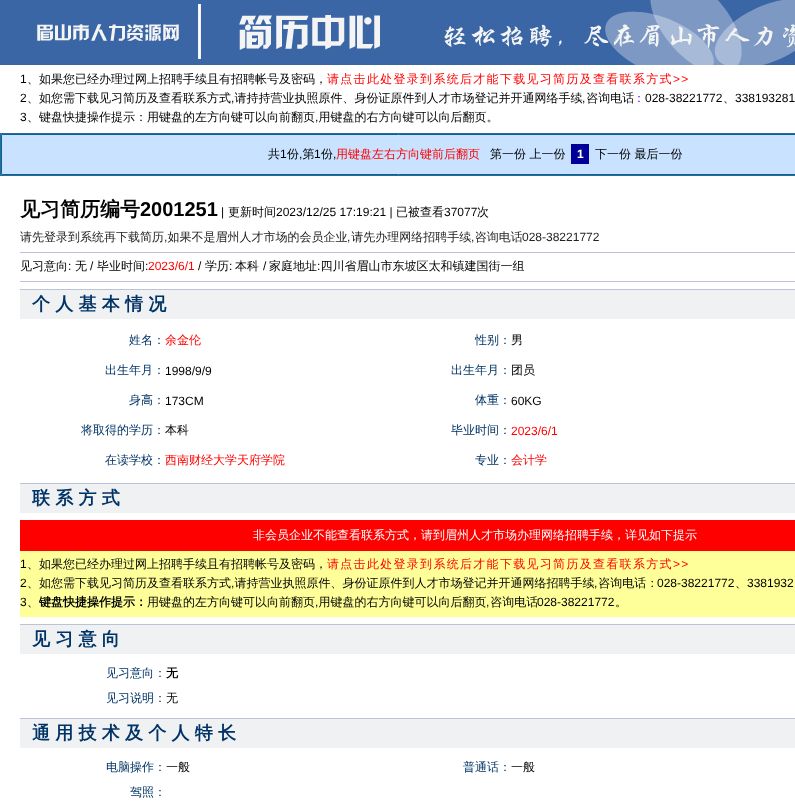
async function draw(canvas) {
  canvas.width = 795
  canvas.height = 801
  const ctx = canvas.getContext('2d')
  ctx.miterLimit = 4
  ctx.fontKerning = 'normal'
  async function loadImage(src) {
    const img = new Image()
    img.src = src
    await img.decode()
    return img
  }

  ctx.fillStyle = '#fff'
  ctx.fillRect(0, 0, 795, 801)
  ctx.drawImage(await loadImage('image0.png'), 0, 0, 795, 65)
  ctx.font = '12px Liberation Sans'
  ctx.fillStyle = '#000'
  ctx.fillText('1', 20, 83)
  ctx.font = '500 12px WenQuanYi Zen Hei'
  ctx.fillText('、如果您已经办理过网上招聘手续且有招聘帐号及密码，', 27, 83)
  ctx.letterSpacing = '1.3px'
  ctx.fillStyle = '#f00'
  ctx.fillText('请点击此处登录到系统后才能下载见习简历及查看联系方式', 327, 83)
  ctx.font = '12px Liberation Sans'
  ctx.fillText('>>', 673, 83)
  ctx.letterSpacing = '0px'
  ctx.fillStyle = '#000'
  ctx.fillText('2', 20, 102)
  ctx.font = '500 12px WenQuanYi Zen Hei'
  ctx.fillText('、如您需下载见习简历及查看联系方式 请持持营业执照原件、身份证原件到人才市场登记并开通网络手续 咨询电话', 27, 102)
  ctx.fillStyle = '#60f'
  ctx.fillText('：', 633, 102)
  ctx.font = '12px Liberation Sans'
  ctx.fillStyle = '#000'
  ctx.fillText('028-38221772', 645, 102)
  ctx.fillText('338193281', 735, 102)
  ctx.fillText(',', 231, 102)
  ctx.fillText(',', 582, 102)
  ctx.font = '500 12px WenQuanYi Zen Hei'
  ctx.fillText('、', 723, 102)
  ctx.font = '12px Liberation Sans'
  ctx.fillText('3', 20, 121)
  ctx.font = '500 12px WenQuanYi Zen Hei'
  ctx.fillText('、键盘快捷操作提示：用键盘的左方向键可以向前翻页 用键盘的右方向键可以向后翻页。', 27, 121)
  ctx.font = '12px Liberation Sans'
  ctx.fillText(',', 315, 121)
  ctx.strokeStyle = '#369'
  ctx.strokeRect(0.5, 133.5, 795, 42)
  ctx.fillStyle = '#c8e2ff'
  ctx.beginPath()
  ctx.rect(1.5, 134.5, 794, 40)
  ctx.fill()
  ctx.strokeStyle = '#069'
  ctx.stroke()
  ctx.font = '500 12px WenQuanYi Zen Hei'
  ctx.fillStyle = '#000'
  ctx.fillText('共', 268, 158)
  ctx.font = '12px Liberation Sans'
  ctx.fillText('1', 280, 158)
  ctx.font = '500 12px WenQuanYi Zen Hei'
  ctx.fillText('份 第', 287, 158)
  ctx.font = '12px Liberation Sans'
  ctx.fillText('1', 314, 158)
  ctx.font = '500 12px WenQuanYi Zen Hei'
  ctx.fillText('份', 321, 158)
  ctx.fillStyle = '#f00'
  ctx.fillText('用键盘左右方向键前后翻页', 336, 158)
  ctx.fillStyle = '#000'
  ctx.fillText('第一份 上一份', 490, 158)
  ctx.fillStyle = '#009'
  ctx.fillRect(571, 144, 18, 20)
  ctx.font = 'bold 12px Liberation Sans'
  ctx.fillStyle = '#fff'
  ctx.fillText('1', 577, 158)
  ctx.font = '500 12px WenQuanYi Zen Hei'
  ctx.fillStyle = '#000'
  ctx.fillText('下一份 最后一份', 595, 158)
  ctx.font = '12px Liberation Sans'
  ctx.fillText(',', 299, 158)
  ctx.fillText(',', 333, 158)
  ctx.font = 'bold 20px WenQuanYi Zen Hei'
  ctx.fillText('见习简历编号', 20, 216)
  ctx.font = 'bold 20px Liberation Sans'
  ctx.fillText('2001251', 140, 216)
  ctx.font = '12px Liberation Sans'
  ctx.fillText('|', 221, 216)
  ctx.font = '500 12px WenQuanYi Zen Hei'
  ctx.fillText('更新时间', 228, 216)
  ctx.font = '12px Liberation Sans'
  ctx.fillText('2023/12/25 17:19:21 |', 276, 216)
  ctx.font = '500 12px WenQuanYi Zen Hei'
  ctx.fillText('已被查看', 396, 216)
  ctx.font = '12px Liberation Sans'
  ctx.fillText('37077', 444, 216)
  ctx.font = '500 12px WenQuanYi Zen Hei'
  ctx.fillText('次', 477, 216)
  ctx.fillStyle = '#222'
  ctx.fillText('请先登录到系统再下载简历 如果不是眉州人才市场的会员企业 请先办理网络招聘手续 咨询电话', 20, 241)
  ctx.font = '12px Liberation Sans'
  ctx.fillText('028-38221772', 522, 241)
  ctx.fillText(',', 164, 241)
  ctx.fillText(',', 347, 241)
  ctx.fillText(',', 471, 241)
  ctx.fillStyle = '#bcc3d6'
  ctx.fillRect(20, 252, 775, 1)
  ctx.fillRect(20, 281, 775, 1)
  ctx.font = '500 12px WenQuanYi Zen Hei'
  ctx.fillStyle = '#000'
  ctx.fillText('见习意向', 20, 270)
  ctx.font = '12px Liberation Sans'
  ctx.fillText(':', 68, 270)
  ctx.font = '500 12px WenQuanYi Zen Hei'
  ctx.fillText('无', 75, 270)
  ctx.font = '12px Liberation Sans'
  ctx.fillText('/', 90, 270)
  ctx.font = '500 12px WenQuanYi Zen Hei'
  ctx.fillText('毕业时间', 97, 270)
  ctx.font = '12px Liberation Sans'
  ctx.fillText(':', 145, 270)
  ctx.fillStyle = '#f00'
  ctx.fillText('2023/6/1', 148, 270)
  ctx.fillStyle = '#000'
  ctx.fillText('/', 198, 270)
  ctx.font = '500 12px WenQuanYi Zen Hei'
  ctx.fillText('学历', 205, 270)
  ctx.font = '12px Liberation Sans'
  ctx.fillText(':', 229, 270)
  ctx.font = '500 12px WenQuanYi Zen Hei'
  ctx.fillText('本科', 235, 270)
  ctx.font = '12px Liberation Sans'
  ctx.fillText('/', 263, 270)
  ctx.font = '500 12px WenQuanYi Zen Hei'
  ctx.fillText('家庭地址 四川省眉山市东坡区太和镇建国街一组', 269, 270)
  ctx.font = '12px Liberation Sans'
  ctx.fillText(':', 317, 270)
  ctx.fillStyle = '#f0f1f3'
  ctx.fillRect(20, 290, 775, 29)
  ctx.fillStyle = '#bcc3d6'
  ctx.fillRect(20, 289, 775, 1)
  ctx.letterSpacing = '5.25px'
  ctx.font = 'bold 18px WenQuanYi Zen Hei'
  ctx.fillStyle = '#036'
  ctx.fillText('个人基本情况', 32, 310)
  ctx.letterSpacing = '0px'
  ctx.font = '500 12px WenQuanYi Zen Hei'
  ctx.fillText('姓名：', 129, 344)
  ctx.fillStyle = '#f00'
  ctx.fillText('余金伦', 165, 344)
  ctx.fillStyle = '#036'
  ctx.fillText('性别：', 475, 344)
  ctx.fillStyle = '#000'
  ctx.fillText('男', 511, 344)
  ctx.fillStyle = '#036'
  ctx.fillText('出生年月：', 105, 374)
  ctx.font = '12px Liberation Sans'
  ctx.fillStyle = '#000'
  ctx.fillText('1998/9/9', 165, 375)
  ctx.font = '500 12px WenQuanYi Zen Hei'
  ctx.fillStyle = '#036'
  ctx.fillText('出生年月：', 451, 374)
  ctx.fillStyle = '#000'
  ctx.fillText('团员', 511, 374)
  ctx.fillStyle = '#036'
  ctx.fillText('身高：', 129, 404)
  ctx.font = '12px Liberation Sans'
  ctx.fillStyle = '#000'
  ctx.fillText('173CM', 165, 405)
  ctx.font = '500 12px WenQuanYi Zen Hei'
  ctx.fillStyle = '#036'
  ctx.fillText('体重：', 475, 404)
  ctx.font = '12px Liberation Sans'
  ctx.fillStyle = '#000'
  ctx.fillText('60KG', 511, 405)
  ctx.font = '500 12px WenQuanYi Zen Hei'
  ctx.fillStyle = '#036'
  ctx.fillText('将取得的学历：', 81, 434)
  ctx.fillStyle = '#000'
  ctx.fillText('本科', 165, 434)
  ctx.fillStyle = '#036'
  ctx.fillText('毕业时间：', 451, 434)
  ctx.font = '12px Liberation Sans'
  ctx.fillStyle = '#f00'
  ctx.fillText('2023/6/1', 511, 435)
  ctx.font = '500 12px WenQuanYi Zen Hei'
  ctx.fillStyle = '#036'
  ctx.fillText('在读学校：', 105, 464)
  ctx.fillStyle = '#f00'
  ctx.fillText('西南财经大学天府学院', 165, 464)
  ctx.fillStyle = '#036'
  ctx.fillText('专业：', 475, 464)
  ctx.fillStyle = '#f00'
  ctx.fillText('会计学', 511, 464)
  ctx.fillStyle = '#f0f1f3'
  ctx.fillRect(20, 484, 775, 29)
  ctx.fillStyle = '#bcc3d6'
  ctx.fillRect(20, 483, 775, 1)
  ctx.letterSpacing = '5.25px'
  ctx.font = 'bold 18px WenQuanYi Zen Hei'
  ctx.fillStyle = '#036'
  ctx.fillText('联系方式', 32, 504)
  ctx.fillStyle = '#f00'
  ctx.fillRect(20, 520, 775, 31)
  ctx.letterSpacing = '0px'
  ctx.font = '500 12px WenQuanYi Zen Hei'
  ctx.fillStyle = '#fff'
  ctx.fillText('非会员企业不能查看联系方式，请到眉州人才市场办理网络招聘手续，详见如下提示', 253, 539)
  ctx.fillStyle = '#ff9'
  ctx.fillRect(20, 551, 775, 66)
  ctx.font = '12px Liberation Sans'
  ctx.fillStyle = '#000'
  ctx.fillText('1', 20, 568)
  ctx.font = '500 12px WenQuanYi Zen Hei'
  ctx.fillText('、如果您已经办理过网上招聘手续且有招聘帐号及密码，', 27, 568)
  ctx.letterSpacing = '1.3px'
  ctx.fillStyle = '#f00'
  ctx.fillText('请点击此处登录到系统后才能下载见习简历及查看联系方式', 327, 568)
  ctx.font = '12px Liberation Sans'
  ctx.fillText('>>', 673, 568)
  ctx.letterSpacing = '0px'
  ctx.fillStyle = '#000'
  ctx.fillText('2', 20, 587)
  ctx.font = '500 12px WenQuanYi Zen Hei'
  ctx.fillText('、如您需下载见习简历及查看联系方式 请持营业执照原件、身份证原件到人才市场登记并开通网络招聘手续 咨询电话：', 27, 587)
  ctx.font = '12px Liberation Sans'
  ctx.fillText('028-38221772', 657, 587)
  ctx.fillText('3381932', 747, 587)
  ctx.fillText(',', 231, 587)
  ctx.fillText(',', 594, 587)
  ctx.font = '500 12px WenQuanYi Zen Hei'
  ctx.fillText('、', 735, 587)
  ctx.font = '12px Liberation Sans'
  ctx.fillText('3', 20, 606)
  ctx.font = 'bold 12px WenQuanYi Zen Hei'
  ctx.fillText('键盘快捷操作提示：', 39, 606)
  ctx.font = '500 12px WenQuanYi Zen Hei'
  ctx.fillText('用键盘的左方向键可以向前翻页 用键盘的右方向键可以向后翻页 咨询电话', 147, 606)
  ctx.font = '12px Liberation Sans'
  ctx.fillText('028-38221772', 537, 606)
  ctx.font = '500 12px WenQuanYi Zen Hei'
  ctx.fillText('、', 27, 606)
  ctx.font = '12px Liberation Sans'
  ctx.fillText(',', 315, 606)
  ctx.fillText(',', 486, 606)
  ctx.font = '500 12px WenQuanYi Zen Hei'
  ctx.fillText('。', 615, 606)
  ctx.fillStyle = '#f0f1f3'
  ctx.fillRect(20, 625, 775, 29)
  ctx.fillStyle = '#bcc3d6'
  ctx.fillRect(20, 624, 775, 1)
  ctx.letterSpacing = '5.25px'
  ctx.font = 'bold 18px WenQuanYi Zen Hei'
  ctx.fillStyle = '#036'
  ctx.fillText('见习意向', 32, 645)
  ctx.letterSpacing = '0px'
  ctx.font = '500 12px WenQuanYi Zen Hei'
  ctx.fillText('见习意向：', 106, 677)
  ctx.font = 'bold 12px WenQuanYi Zen Hei'
  ctx.fillStyle = '#000'
  ctx.fillText('无', 166, 677)
  ctx.font = '500 12px WenQuanYi Zen Hei'
  ctx.fillStyle = '#036'
  ctx.fillText('见习说明：', 106, 702)
  ctx.fillStyle = '#000'
  ctx.fillText('无', 166, 702)
  ctx.fillStyle = '#f0f1f3'
  ctx.fillRect(20, 719, 775, 29)
  ctx.fillStyle = '#bcc3d6'
  ctx.fillRect(20, 718, 775, 1)
  ctx.letterSpacing = '5.25px'
  ctx.font = 'bold 18px WenQuanYi Zen Hei'
  ctx.fillStyle = '#036'
  ctx.fillText('通用技术及个人特长', 32, 739)
  ctx.letterSpacing = '0px'
  ctx.font = '500 12px WenQuanYi Zen Hei'
  ctx.fillText('电脑操作：', 106, 771)
  ctx.fillStyle = '#000'
  ctx.fillText('一般', 166, 771)
  ctx.fillStyle = '#036'
  ctx.fillText('普通话：', 463, 771)
  ctx.fillStyle = '#000'
  ctx.fillText('一般', 511, 771)
  ctx.fillStyle = '#036'
  ctx.fillText('驾照：', 130, 796)
}

draw(document.querySelector('canvas'))
